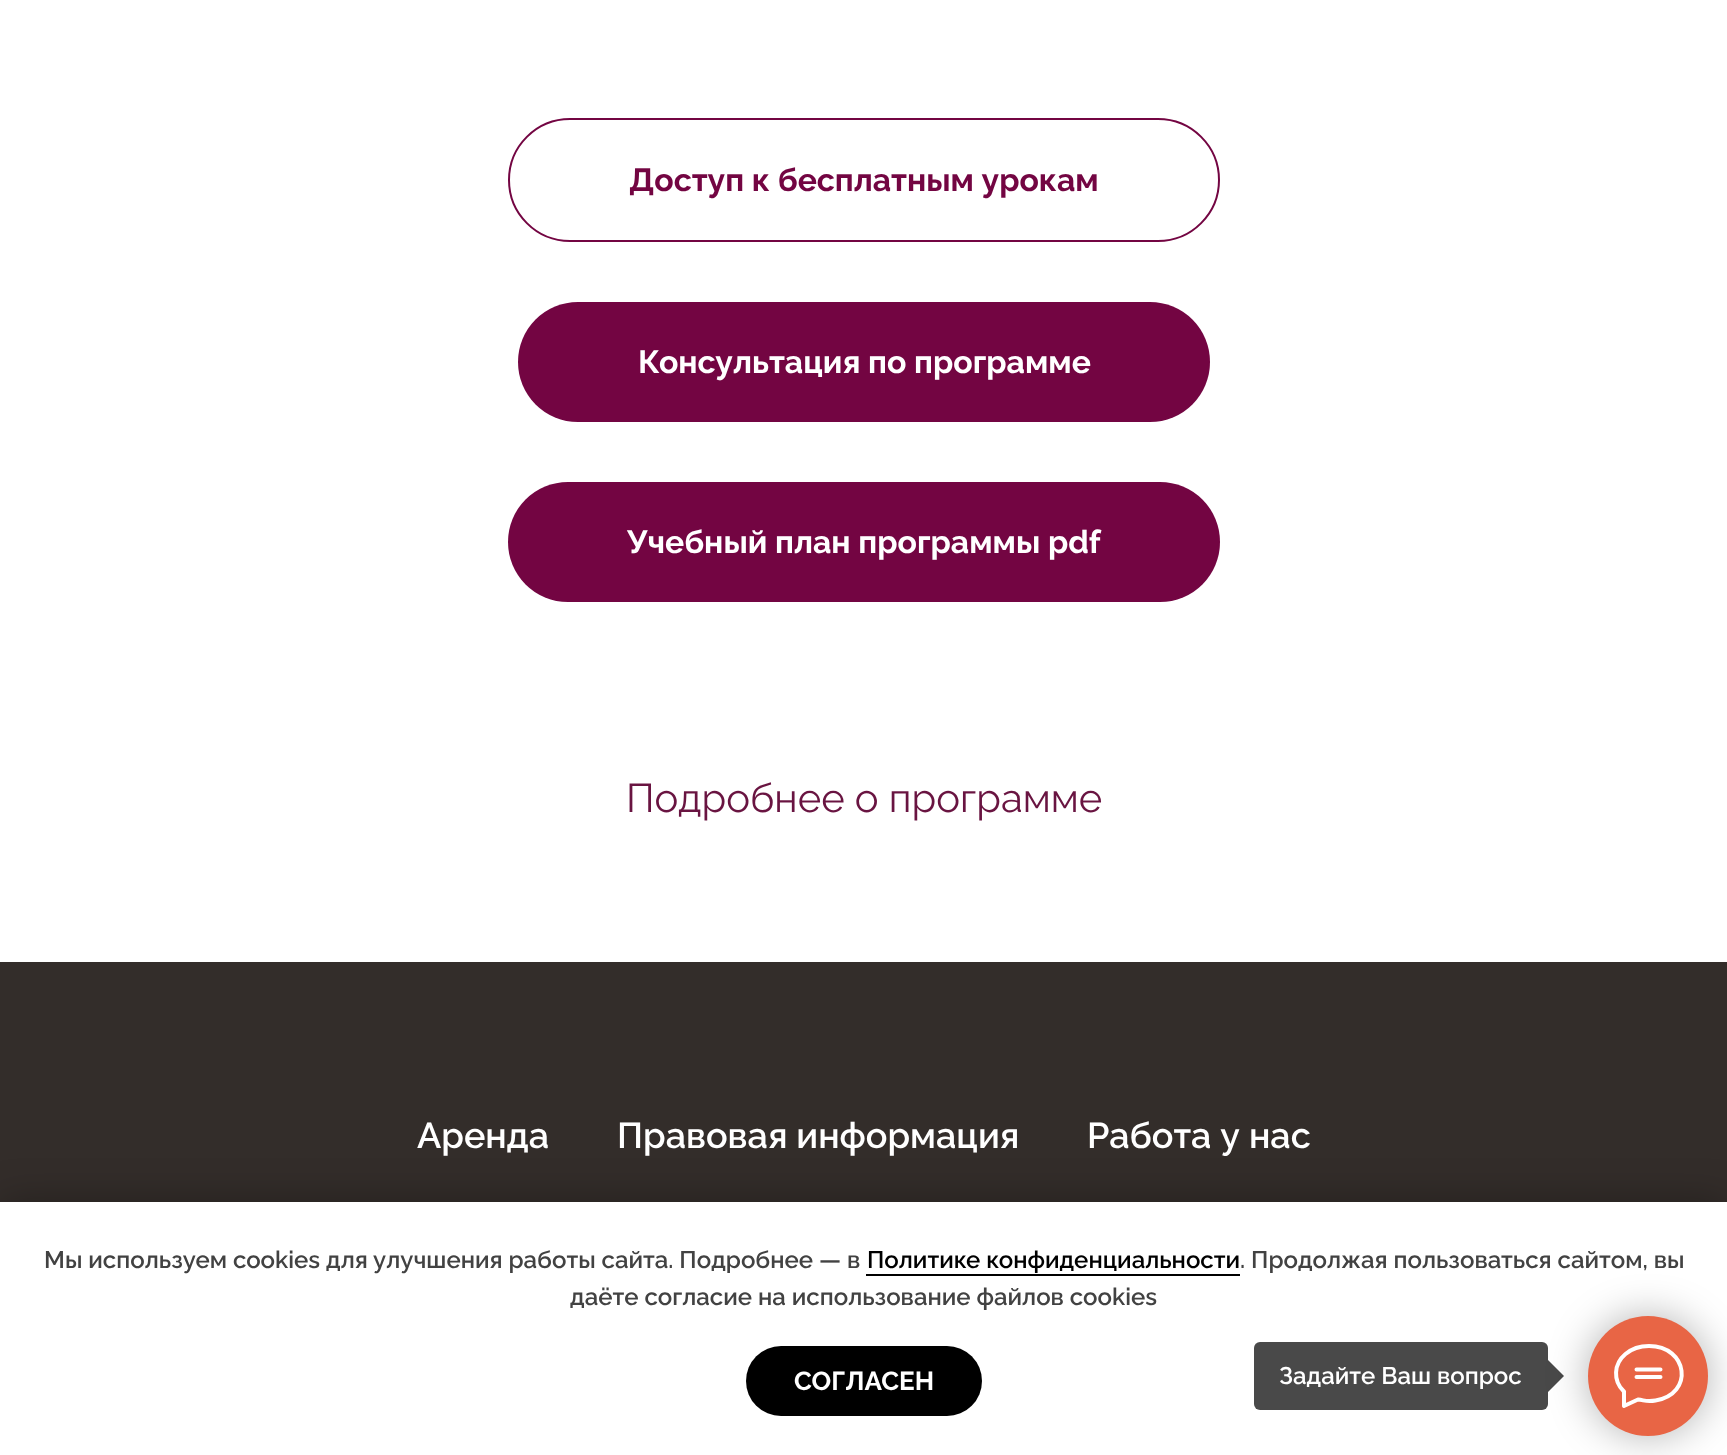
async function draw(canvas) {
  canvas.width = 1727
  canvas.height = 1455
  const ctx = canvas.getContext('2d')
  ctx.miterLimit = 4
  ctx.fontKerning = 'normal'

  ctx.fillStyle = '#fff'
  ctx.fillRect(0, 0, 1727, 1455)
  ctx.beginPath()
  ctx.roundRect(509, 119, 710, 122, 61)
  ctx.strokeStyle = '#730542'
  ctx.lineWidth = 2
  ctx.stroke()
  ctx.font = 'bold 32px Raleway'
  ctx.fillStyle = '#730542'
  ctx.fillText('Доступ к бесплатным урокам', 629, 191)
  ctx.beginPath()
  ctx.roundRect(518, 302, 692, 120, 60)
  ctx.fill()
  ctx.fillStyle = '#fff'
  ctx.fillText('Консультация по программе', 638, 373)
  ctx.fillStyle = '#730542'
  ctx.beginPath()
  ctx.roundRect(508, 482, 712, 120, 60)
  ctx.fill()
  ctx.fillStyle = '#fff'
  ctx.fillText('Учебный план программы pdf', 627, 553)
  ctx.font = '40px Raleway'
  ctx.fillStyle = '#691441'
  ctx.fillText('Подробнее о программе', 626, 812)
  ctx.fillStyle = '#332d2a'
  ctx.fillRect(0, 962, 1727, 240)
  ctx.font = '600 36px Raleway'
  ctx.fillStyle = '#fff'
  ctx.fillText('Аренда', 417, 1148)
  ctx.fillText('Правовая информация', 617, 1148)
  ctx.wordSpacing = '1px'
  ctx.fillText('Работа у нас', 1087, 1148)
  ctx.fillStyle = '#0000004d'
  ctx.filter = 'blur(20px)'
  ctx.beginPath()
  ctx.rect(0, 1202, 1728, 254)
  ctx.fill()
  ctx.filter = 'none'
  ctx.fillStyle = '#fff'
  ctx.fillRect(0, 1202, 1727, 253)
  ctx.wordSpacing = '0px'
  ctx.font = '600 24px Raleway'
  ctx.fillStyle = '#424242'
  ctx.fillText('Мы используем cookies для улучшения работы сайта. Подробнее — в', 44, 1268)
  ctx.fillStyle = '#000'
  ctx.fillText('Политике конфиденциальности', 867, 1268)
  ctx.fillRect(866, 1274, 374, 2)
  ctx.fillStyle = '#424242'
  ctx.fillText('. Продолжая пользоваться сайтом, вы', 1240, 1268)
  ctx.fillText('даёте согласие на использование файлов cookies', 570, 1305)
  ctx.fillStyle = '#000'
  ctx.beginPath()
  ctx.roundRect(746, 1346, 236, 70, 35)
  ctx.fill()
  ctx.font = 'bold 26px Raleway'
  ctx.fillStyle = '#fff'
  ctx.fillText('СОГЛАСЕН', 794, 1390)
  ctx.fillStyle = '#494949'
  ctx.beginPath()
  ctx.roundRect(1254, 1342, 294, 68, 6)
  ctx.fill()
  ctx.font = '600 24px Raleway'
  ctx.fillStyle = '#fff'
  ctx.fillText('Задайте Ваш вопрос', 1279, 1384)
  ctx.fillStyle = '#494949'
  ctx.beginPath()
  ctx.moveTo(1548, 1392)
  ctx.lineTo(1548, 1360)
  ctx.lineTo(1564, 1376)
  ctx.closePath()
  ctx.fill()
  ctx.fillStyle = '#0000004d'
  ctx.filter = 'blur(20px)'
  ctx.beginPath()
  ctx.roundRect(1588, 1316, 120, 120, 60)
  ctx.fill()
  ctx.filter = 'none'
  ctx.fillStyle = '#e86545'
  ctx.beginPath()
  ctx.arc(1648, 1376, 60, 0, 2 * Math.PI)
  ctx.fill()
  ctx.beginPath()
  ctx.moveTo(1636.5, 1369.5)
  ctx.lineTo(1660.5, 1369.5)
  ctx.moveTo(1636.5, 1377)
  ctx.lineTo(1660.5, 1377)
  ctx.moveTo(1623.5, 1391)
  ctx.bezierCurveTo(1613, 1380.5, 1613.5, 1364, 1625.5, 1354)
  ctx.bezierCurveTo(1632, 1348.5, 1640.5, 1346, 1649, 1346)
  ctx.bezierCurveTo(1688, 1346, 1694.5, 1394, 1655.5, 1400.5)
  ctx.bezierCurveTo(1647, 1402, 1645.5, 1400.5, 1638, 1399.5)
  ctx.lineTo(1624, 1406)
  ctx.lineTo(1624, 1391.5)
  ctx.closePath()
  ctx.strokeStyle = '#fff'
  ctx.lineWidth = 4
  ctx.lineCap = 'round'
  ctx.lineJoin = 'round'
  ctx.stroke()
}

draw(document.querySelector('canvas'))
